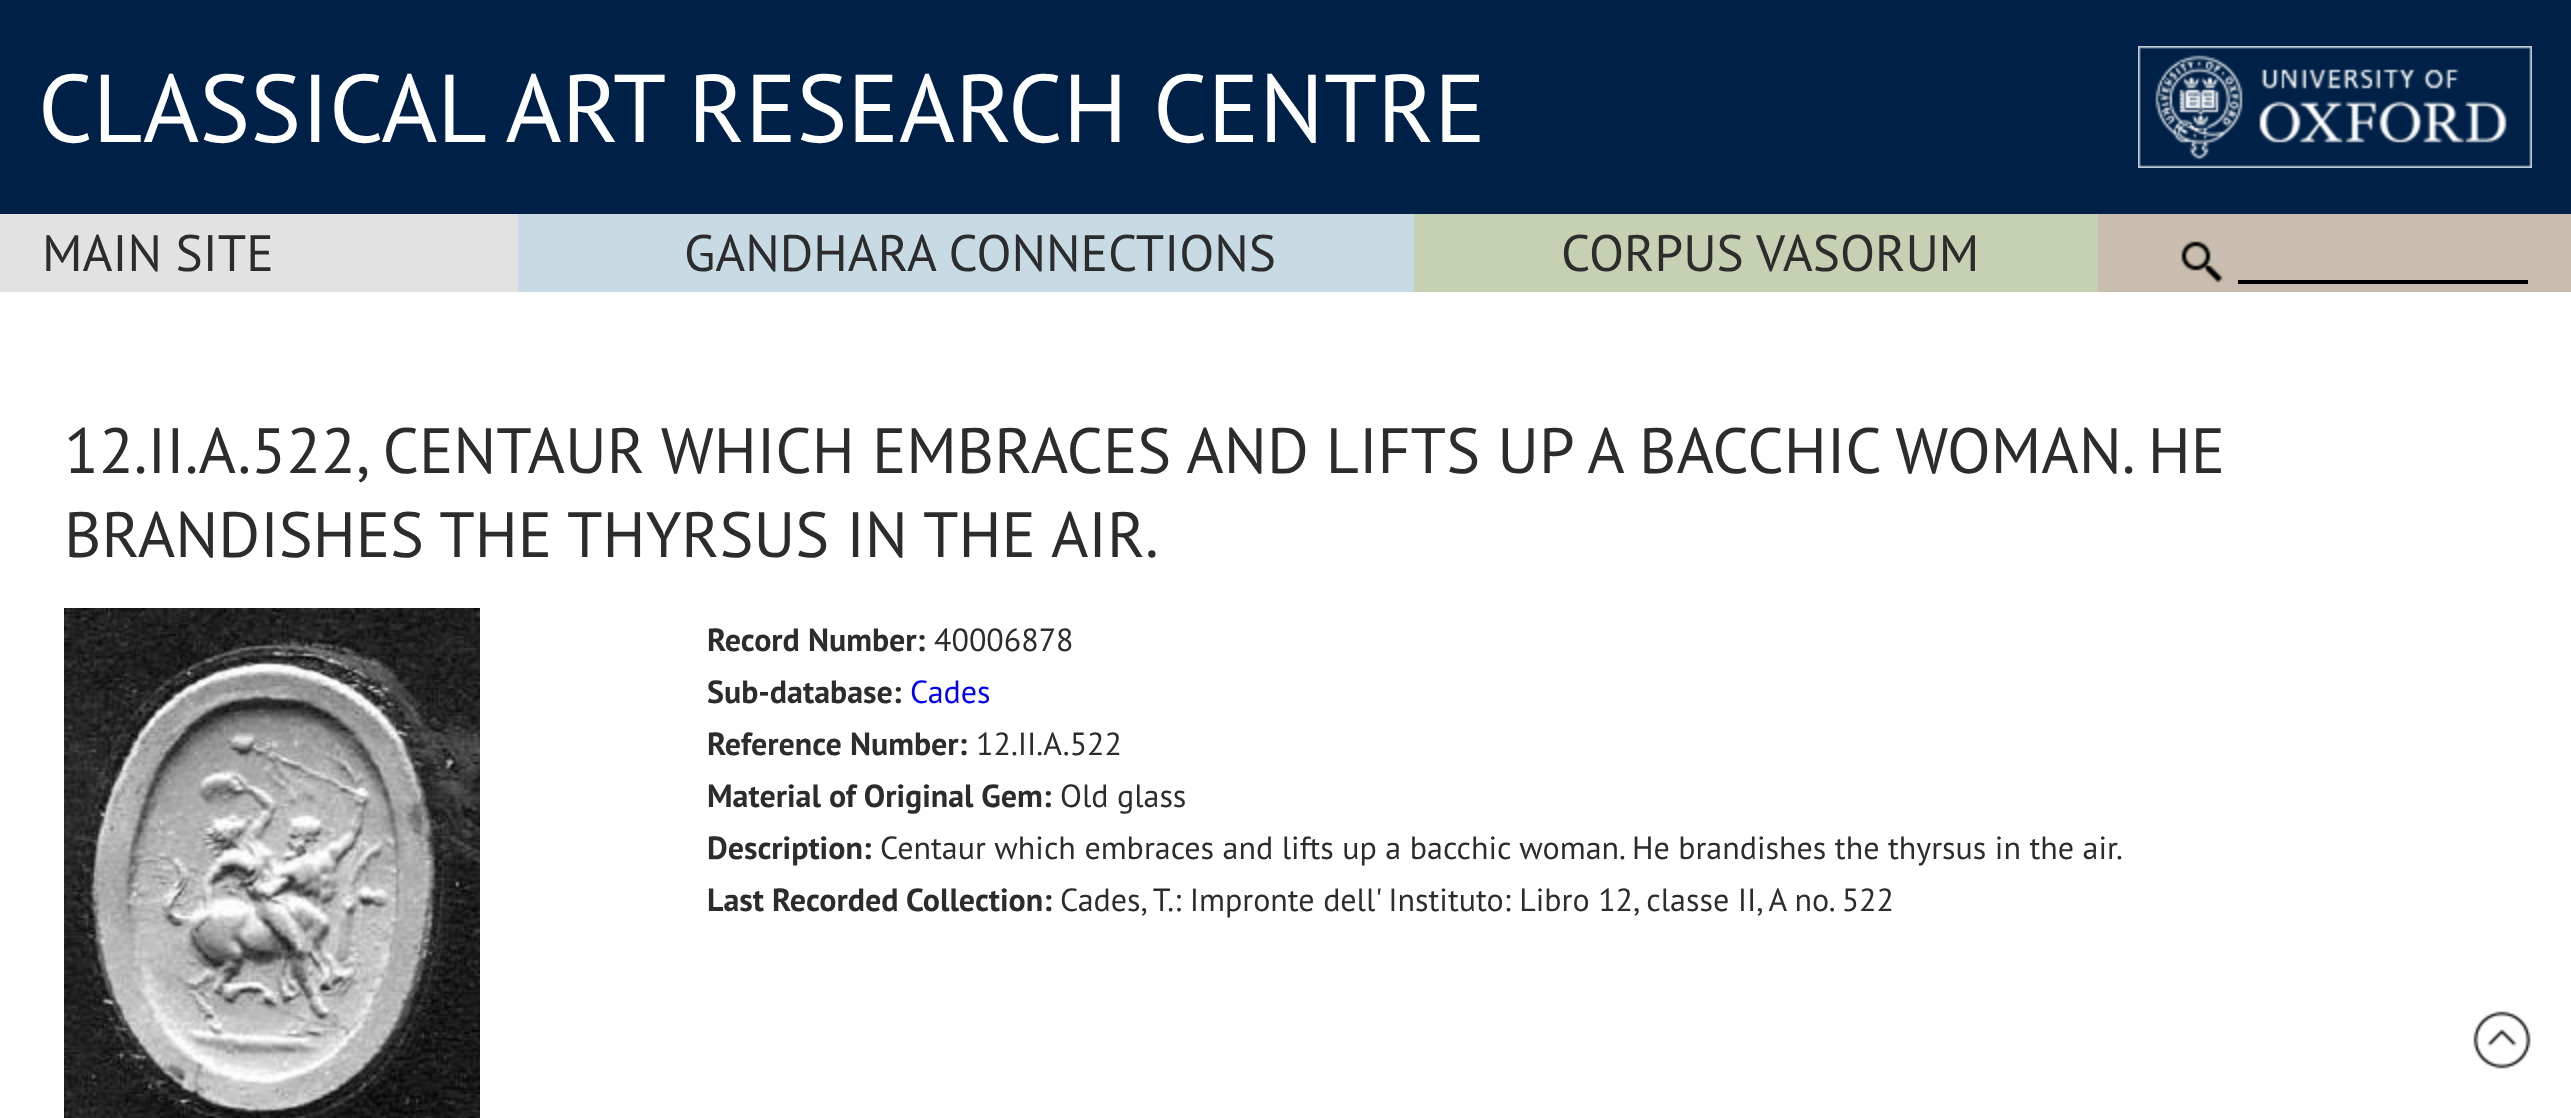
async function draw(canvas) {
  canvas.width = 2571
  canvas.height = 1118
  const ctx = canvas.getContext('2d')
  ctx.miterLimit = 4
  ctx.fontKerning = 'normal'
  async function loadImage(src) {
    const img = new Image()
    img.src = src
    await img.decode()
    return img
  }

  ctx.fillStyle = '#fff'
  ctx.fillRect(0, 0, 2571, 1118)
  ctx.fillStyle = '#002147'
  ctx.fillRect(0, 0, 2571, 214)
  ctx.font = '96px PT Sans'
  ctx.fillStyle = '#fff'
  ctx.fillText('CLASSICAL ART RESEARCH CENTRE', 38, 142)
  ctx.drawImage(await loadImage('image0.png'), 2138, 46, 394, 122)
  ctx.fillStyle = '#e2e2e2'
  ctx.fillRect(0, 214, 518, 78)
  ctx.font = '51.25px PT Sans'
  ctx.fillStyle = '#2c2c2c'
  ctx.fillText('MAIN SITE', 42, 271)
  ctx.fillStyle = '#c8dbe5'
  ctx.fillRect(518, 214, 896, 78)
  ctx.fillStyle = '#2c2c2c'
  ctx.fillText('GANDHARA CONNECTIONS', 684, 271)
  ctx.fillStyle = '#c5d1b2'
  ctx.fillRect(1414, 214, 684, 78)
  ctx.fillStyle = '#2c2c2c'
  ctx.fillText('CORPUS VASORUM', 1561, 271)
  ctx.fillStyle = '#c8bdae'
  ctx.fillRect(2098, 214, 473, 78)
  ctx.drawImage(await loadImage('image1.png'), 2181, 241, 42, 42)
  ctx.fillStyle = '#000'
  ctx.fillRect(2238, 280, 290, 4)
  ctx.font = '64px PT Sans'
  ctx.fillStyle = '#2c2c2c'
  ctx.fillText('12.II.A.522, CENTAUR WHICH EMBRACES AND LIFTS UP A BACCHIC WOMAN. HE', 64, 473)
  ctx.fillText('BRANDISHES THE THYRSUS IN THE AIR.', 64, 557)
  ctx.drawImage(await loadImage('image2.png'), 64, 608, 416, 510)
  ctx.font = 'bold 32px PT Sans'
  ctx.fillText('Record Number:', 707, 651)
  ctx.font = '32px PT Sans'
  ctx.fillText('40006878', 934, 651)
  ctx.font = 'bold 32px PT Sans'
  ctx.fillText('Sub-database:', 707, 703)
  ctx.font = '32px PT Sans'
  ctx.fillStyle = '#00e'
  ctx.fillText('Cades', 910, 703)
  ctx.font = 'bold 32px PT Sans'
  ctx.fillStyle = '#2c2c2c'
  ctx.fillText('Reference Number:', 707, 755)
  ctx.font = '32px PT Sans'
  ctx.fillText('12.II.A.522', 976, 755)
  ctx.font = 'bold 32px PT Sans'
  ctx.fillText('Material of Original Gem:', 707, 807)
  ctx.font = '32px PT Sans'
  ctx.fillText('Old glass', 1060, 807)
  ctx.font = 'bold 32px PT Sans'
  ctx.fillText('Description:', 707, 859)
  ctx.font = '32px PT Sans'
  ctx.fillText('Centaur which embraces and lifts up a bacchic woman. He brandishes the thyrsus in the air.', 880, 859)
  ctx.font = 'bold 32px PT Sans'
  ctx.fillText('Last Recorded Collection:', 707, 911)
  ctx.font = '32px PT Sans'
  ctx.fillText('Cades, T.: Impronte dell\' Instituto: Libro 12, classe II, A no. 522', 1060, 911)
  ctx.drawImage(await loadImage('image3.png'), 2473, 1011, 58, 58)
}

draw(document.querySelector('canvas'))
